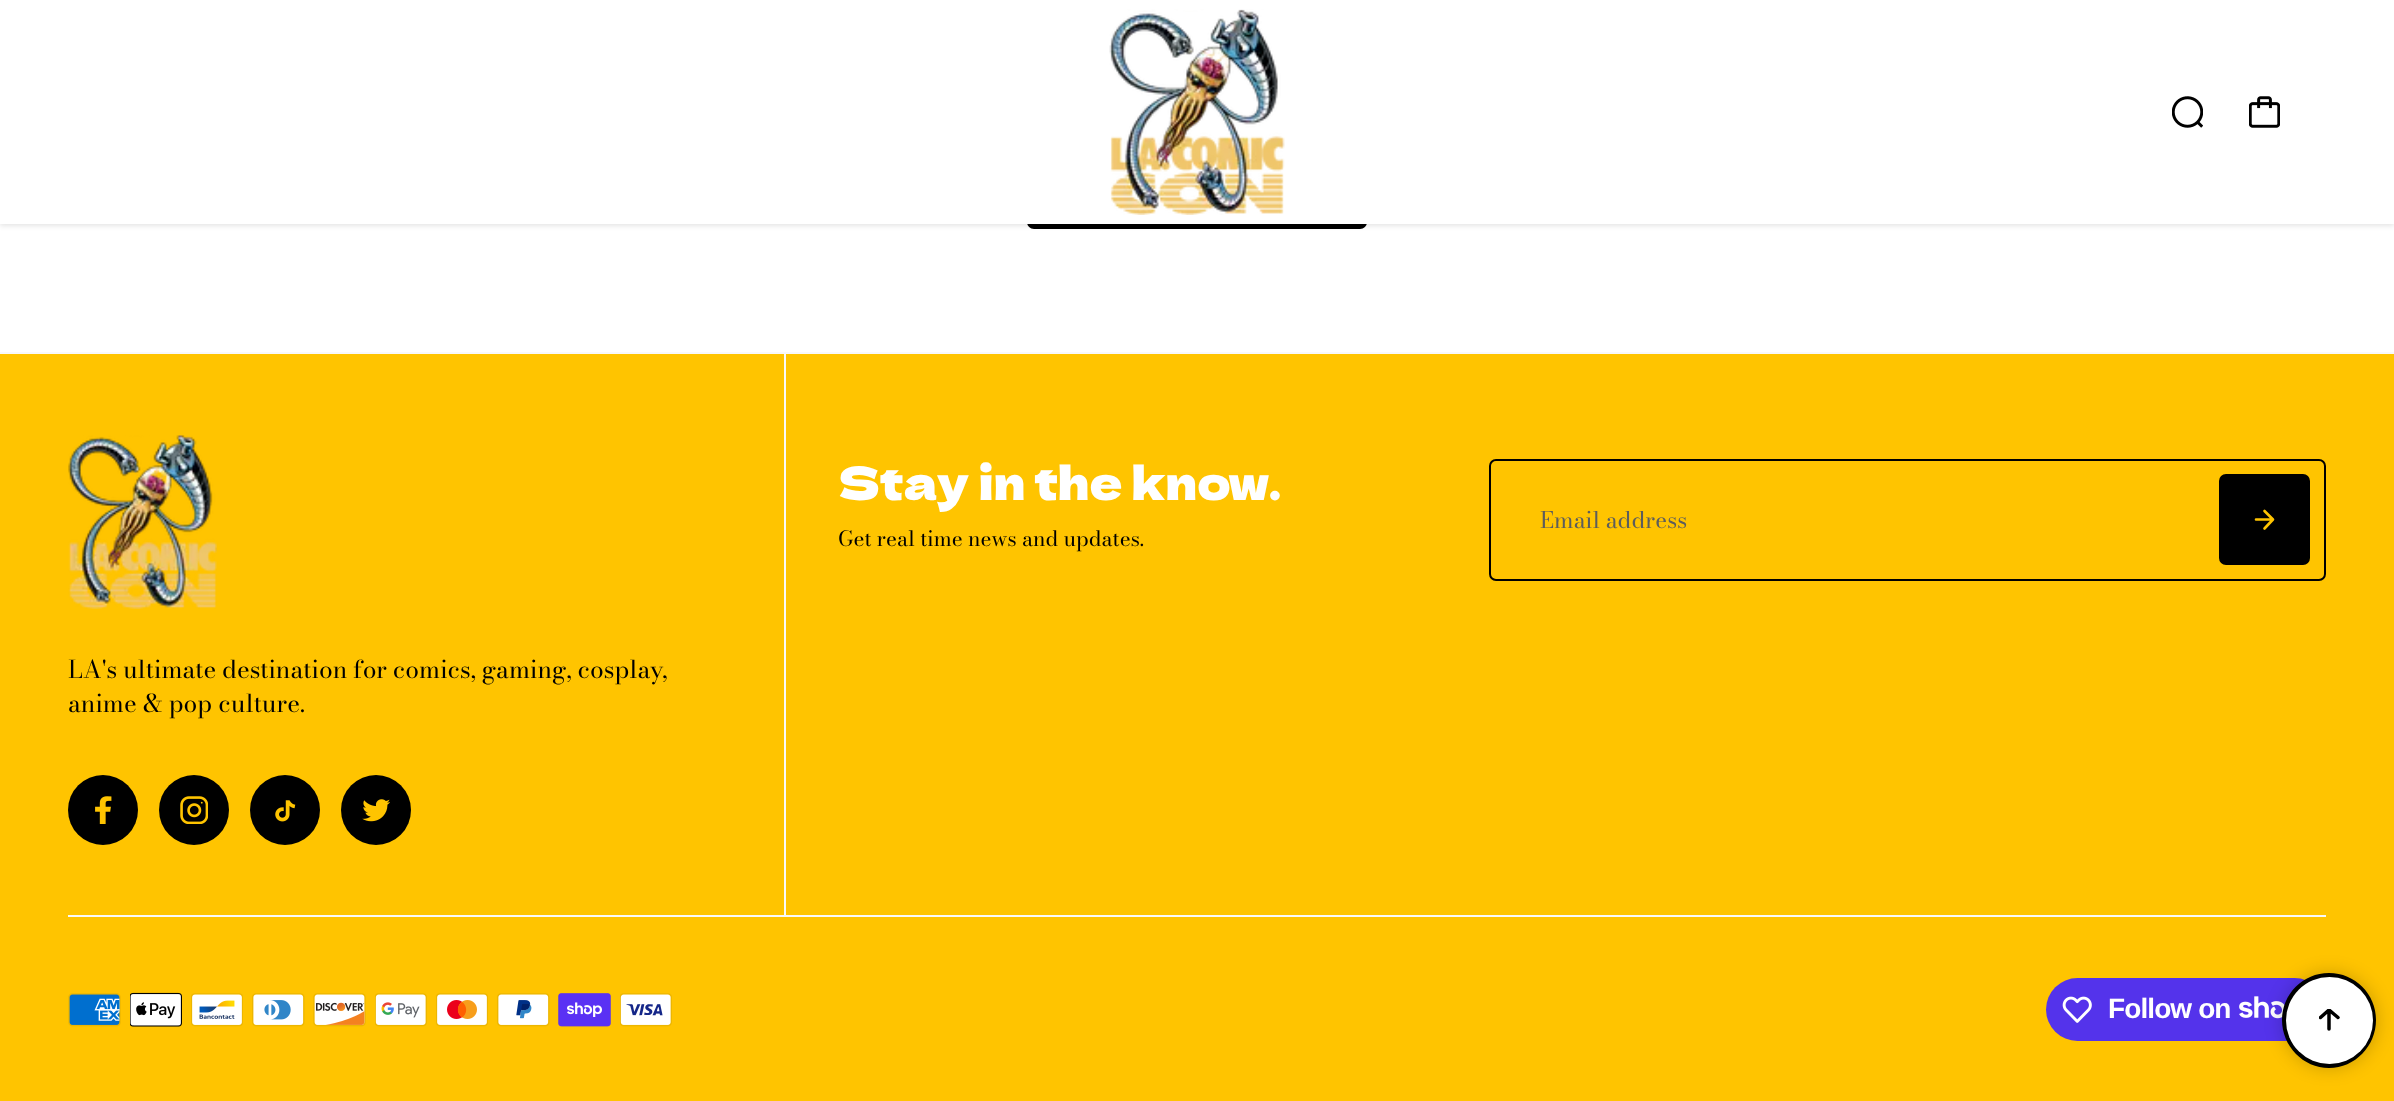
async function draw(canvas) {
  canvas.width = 2394
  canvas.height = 1101
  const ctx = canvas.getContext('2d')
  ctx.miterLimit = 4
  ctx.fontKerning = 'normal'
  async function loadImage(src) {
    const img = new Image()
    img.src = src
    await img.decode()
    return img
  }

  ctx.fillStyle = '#fff'
  ctx.fillRect(0, 0, 2394, 1101)
  ctx.fillStyle = '#000'
  ctx.beginPath()
  ctx.roundRect(1028, 153, 338, 75, 6)
  ctx.fill()
  ctx.strokeStyle = '#000'
  ctx.lineWidth = 2
  ctx.stroke()
  ctx.fillStyle = '#0000001a'
  ctx.filter = 'blur(2.5px)'
  ctx.beginPath()
  ctx.rect(0, 2, 2394, 224)
  ctx.fill()
  ctx.filter = 'none'
  ctx.fillStyle = '#fff'
  ctx.fillRect(0, 0, 2394, 224)
  ctx.drawImage(await loadImage('image0.png'), 1109, 9, 176, 206)
  ctx.drawImage(await loadImage('image1.png'), 2172, 96, 31, 32)
  ctx.drawImage(await loadImage('image2.png'), 2249, 96, 31, 32)
  ctx.fillStyle = '#ffc400'
  ctx.fillRect(0, 354, 2394, 747)
  ctx.fillStyle = '#f9f9f9'
  ctx.fillRect(0, 352, 2394, 2)
  ctx.font = '45.5px Dela Gothic One'
  ctx.fillStyle = '#fff'
  ctx.fillText('Stay in the know.', 838, 500)
  ctx.font = '21px Bodoni Moda'
  ctx.fillStyle = '#000'
  ctx.fillText('Get real time news and updates.', 838, 546)
  ctx.beginPath()
  ctx.roundRect(1490, 460, 835, 120, 6)
  ctx.stroke()
  ctx.font = '22.75px Bodoni Moda'
  ctx.fillStyle = '#5c5d5d'
  ctx.fillText('Email address', 1540, 528)
  ctx.fillStyle = '#000'
  ctx.beginPath()
  ctx.roundRect(2220, 475, 89, 89, 6)
  ctx.fill()
  ctx.stroke()
  ctx.beginPath()
  ctx.moveTo(2256, 519.5)
  ctx.lineTo(2272.5, 519.5)
  ctx.moveTo(2264.5, 528.5)
  ctx.lineTo(2273, 519.5)
  ctx.lineTo(2264.5, 511)
  ctx.strokeStyle = '#ffc400'
  ctx.lineWidth = 2.6
  ctx.lineCap = 'round'
  ctx.lineJoin = 'round'
  ctx.stroke()
  ctx.fillStyle = '#f9f9f9'
  ctx.fillRect(784, 354, 2, 561)
  ctx.drawImage(await loadImage('image3.png'), 68, 435, 149, 174)
  ctx.wordSpacing = '-0.5px'
  ctx.font = '24.5px Bodoni Moda'
  ctx.fillStyle = '#000'
  ctx.fillText('LA\'s ultimate destination for comics, gaming, cosplay,', 68, 678)
  ctx.wordSpacing = '0px'
  ctx.fillText('anime & pop culture.', 68, 712)
  ctx.beginPath()
  ctx.arc(103, 810, 35, 0, 2 * Math.PI)
  ctx.fill()
  ctx.drawImage(await loadImage('image4.png'), 95, 796, 17, 28)
  ctx.beginPath()
  ctx.arc(194, 810, 35, 0, 2 * Math.PI)
  ctx.fill()
  ctx.drawImage(await loadImage('image5.png'), 180, 796, 28, 28)
  ctx.beginPath()
  ctx.arc(285, 810, 35, 0, 2 * Math.PI)
  ctx.fill()
  ctx.drawImage(await loadImage('image6.png'), 275, 800, 21, 22)
  ctx.beginPath()
  ctx.arc(376, 810, 35, 0, 2 * Math.PI)
  ctx.fill()
  ctx.drawImage(await loadImage('image7.png'), 362, 799, 28, 23)
  ctx.fillStyle = '#f9f9f9'
  ctx.fillRect(68, 915, 2258, 2)
  ctx.drawImage(await loadImage('image8.png'), 68, 993, 53, 34)
  ctx.drawImage(await loadImage('image9.png'), 130, 992, 52, 35)
  ctx.drawImage(await loadImage('image10.png'), 191, 993, 52, 34)
  ctx.drawImage(await loadImage('image11.png'), 252, 993, 53, 34)
  ctx.drawImage(await loadImage('image12.png'), 313, 993, 53, 34)
  ctx.drawImage(await loadImage('image13.png'), 375, 993, 52, 34)
  ctx.drawImage(await loadImage('image14.png'), 436, 993, 52, 34)
  ctx.drawImage(await loadImage('image15.png'), 497, 993, 53, 34)
  ctx.drawImage(await loadImage('image16.png'), 558, 993, 53, 34)
  ctx.drawImage(await loadImage('image17.png'), 620, 993, 52, 34)
  ctx.fillStyle = '#5433eb'
  ctx.beginPath()
  ctx.roundRect(2046, 978, 280, 63, 31.5)
  ctx.fill()
  ctx.drawImage(await loadImage('image18.png'), 2062, 996, 30, 27)
  ctx.letterSpacing = '-0.9px'
  ctx.font = 'bold 28px Liberation Sans'
  ctx.fillStyle = '#fff'
  ctx.fillText('Follow on', 2108, 1018)
  ctx.drawImage(await loadImage('image19.png'), 2239, 996, 46, 23)
  ctx.fillStyle = '#00000033'
  ctx.filter = 'blur(9px)'
  ctx.beginPath()
  ctx.roundRect(2282, 973, 95, 95, 47.5)
  ctx.fill()
  ctx.filter = 'none'
  ctx.fillStyle = '#000'
  ctx.beginPath()
  ctx.moveTo(2329, 1020)
  ctx.lineTo(2329, 973)
  ctx.bezierCurveTo(2355, 973, 2376, 994, 2376, 1020)
  ctx.bezierCurveTo(2376, 1046, 2355, 1068, 2329, 1068)
  ctx.bezierCurveTo(2303, 1068, 2282, 1046, 2282, 1020)
  ctx.bezierCurveTo(2282, 994, 2303, 973, 2329, 973)
  ctx.closePath()
  ctx.fill()
  ctx.fillStyle = '#fff'
  ctx.beginPath()
  ctx.arc(2329.5, 1020.5, 43.5, 0, 2 * Math.PI)
  ctx.fill()
  ctx.save()
  ctx.beginPath()
  ctx.moveTo(2319, 1031.5)
  ctx.lineTo(2319, 1009)
  ctx.lineTo(2340, 1009)
  ctx.lineTo(2340, 1031.5)
  ctx.closePath()
  ctx.clip()
  ctx.beginPath()
  ctx.moveTo(2329, 1029)
  ctx.lineTo(2329, 1010.5)
  ctx.moveTo(2338, 1017.5)
  ctx.lineTo(2329, 1010)
  ctx.lineTo(2320.5, 1017.5)
  ctx.strokeStyle = '#000'
  ctx.lineWidth = 3.5
  ctx.stroke()
  ctx.restore()
}

draw(document.querySelector('canvas'))
